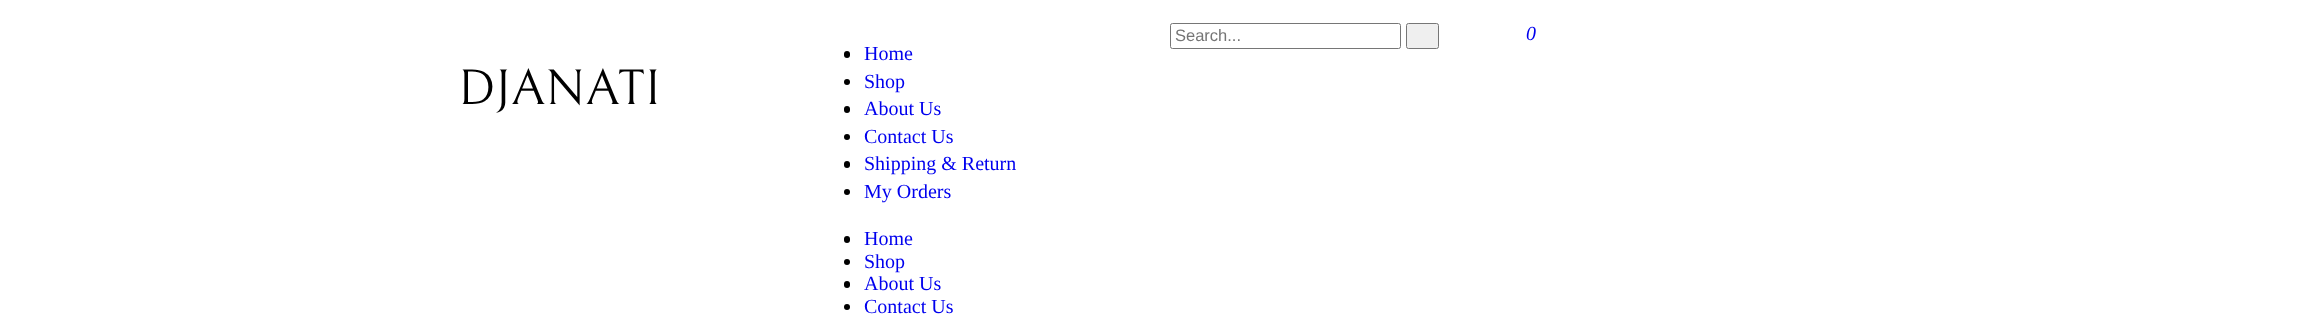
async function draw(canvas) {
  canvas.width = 2315
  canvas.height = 317
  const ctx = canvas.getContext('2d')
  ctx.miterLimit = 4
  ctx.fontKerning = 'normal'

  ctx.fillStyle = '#fff'
  ctx.fillRect(0, 0, 2315, 317)
  ctx.beginPath()
  ctx.roundRect(1170.5, 23.5, 230, 25, 2)
  ctx.strokeStyle = '#767676'
  ctx.stroke()
  ctx.font = '16.5px Liberation Sans'
  ctx.fillStyle = '#757575'
  ctx.fillText('Search...', 1175, 41)
  ctx.fillStyle = '#efefef'
  ctx.beginPath()
  ctx.roundRect(1406.5, 23.5, 32, 25, 2)
  ctx.fill()
  ctx.stroke()
  ctx.font = 'italic 20px Liberation Serif'
  ctx.fillStyle = '#00e'
  ctx.fillText('0', 1526, 40)
  ctx.font = '50px Bellefair'
  ctx.fillStyle = '#000'
  ctx.fillText('DJANATI', 458, 104)
  ctx.beginPath()
  ctx.roundRect(844, 51, 6, 7, 3)
  ctx.fill()
  ctx.font = '20px Liberation Serif'
  ctx.fillStyle = '#00e'
  ctx.fillText('Home', 864, 60)
  ctx.fillStyle = '#000'
  ctx.beginPath()
  ctx.arc(847, 82, 3, 0, 2 * Math.PI)
  ctx.fill()
  ctx.fillStyle = '#00e'
  ctx.fillText('Shop', 864, 88)
  ctx.fillStyle = '#000'
  ctx.beginPath()
  ctx.roundRect(844, 106, 6, 7, 3)
  ctx.fill()
  ctx.fillStyle = '#00e'
  ctx.fillText('About Us', 864, 115)
  ctx.fillStyle = '#000'
  ctx.beginPath()
  ctx.arc(847, 137, 3, 0, 2 * Math.PI)
  ctx.fill()
  ctx.fillStyle = '#00e'
  ctx.fillText('Contact Us', 864, 143)
  ctx.fillStyle = '#000'
  ctx.beginPath()
  ctx.roundRect(844, 161, 6, 7, 3)
  ctx.fill()
  ctx.fillStyle = '#00e'
  ctx.fillText('Shipping & Return', 864, 170)
  ctx.fillStyle = '#000'
  ctx.beginPath()
  ctx.arc(847, 192, 3, 0, 2 * Math.PI)
  ctx.fill()
  ctx.fillStyle = '#00e'
  ctx.fillText('My Orders', 864, 198)
  ctx.fillStyle = '#000'
  ctx.beginPath()
  ctx.roundRect(844, 236, 6, 7, 3)
  ctx.fill()
  ctx.fillStyle = '#00e'
  ctx.fillText('Home', 864, 245)
  ctx.fillStyle = '#000'
  ctx.beginPath()
  ctx.arc(847, 262, 3, 0, 2 * Math.PI)
  ctx.fill()
  ctx.fillStyle = '#00e'
  ctx.fillText('Shop', 864, 268)
  ctx.fillStyle = '#000'
  ctx.beginPath()
  ctx.roundRect(844, 281, 6, 7, 3)
  ctx.fill()
  ctx.fillStyle = '#00e'
  ctx.fillText('About Us', 864, 290)
  ctx.fillStyle = '#000'
  ctx.beginPath()
  ctx.arc(847, 307, 3, 0, 2 * Math.PI)
  ctx.fill()
  ctx.fillStyle = '#00e'
  ctx.fillText('Contact Us', 864, 313)
}

draw(document.querySelector('canvas'))
